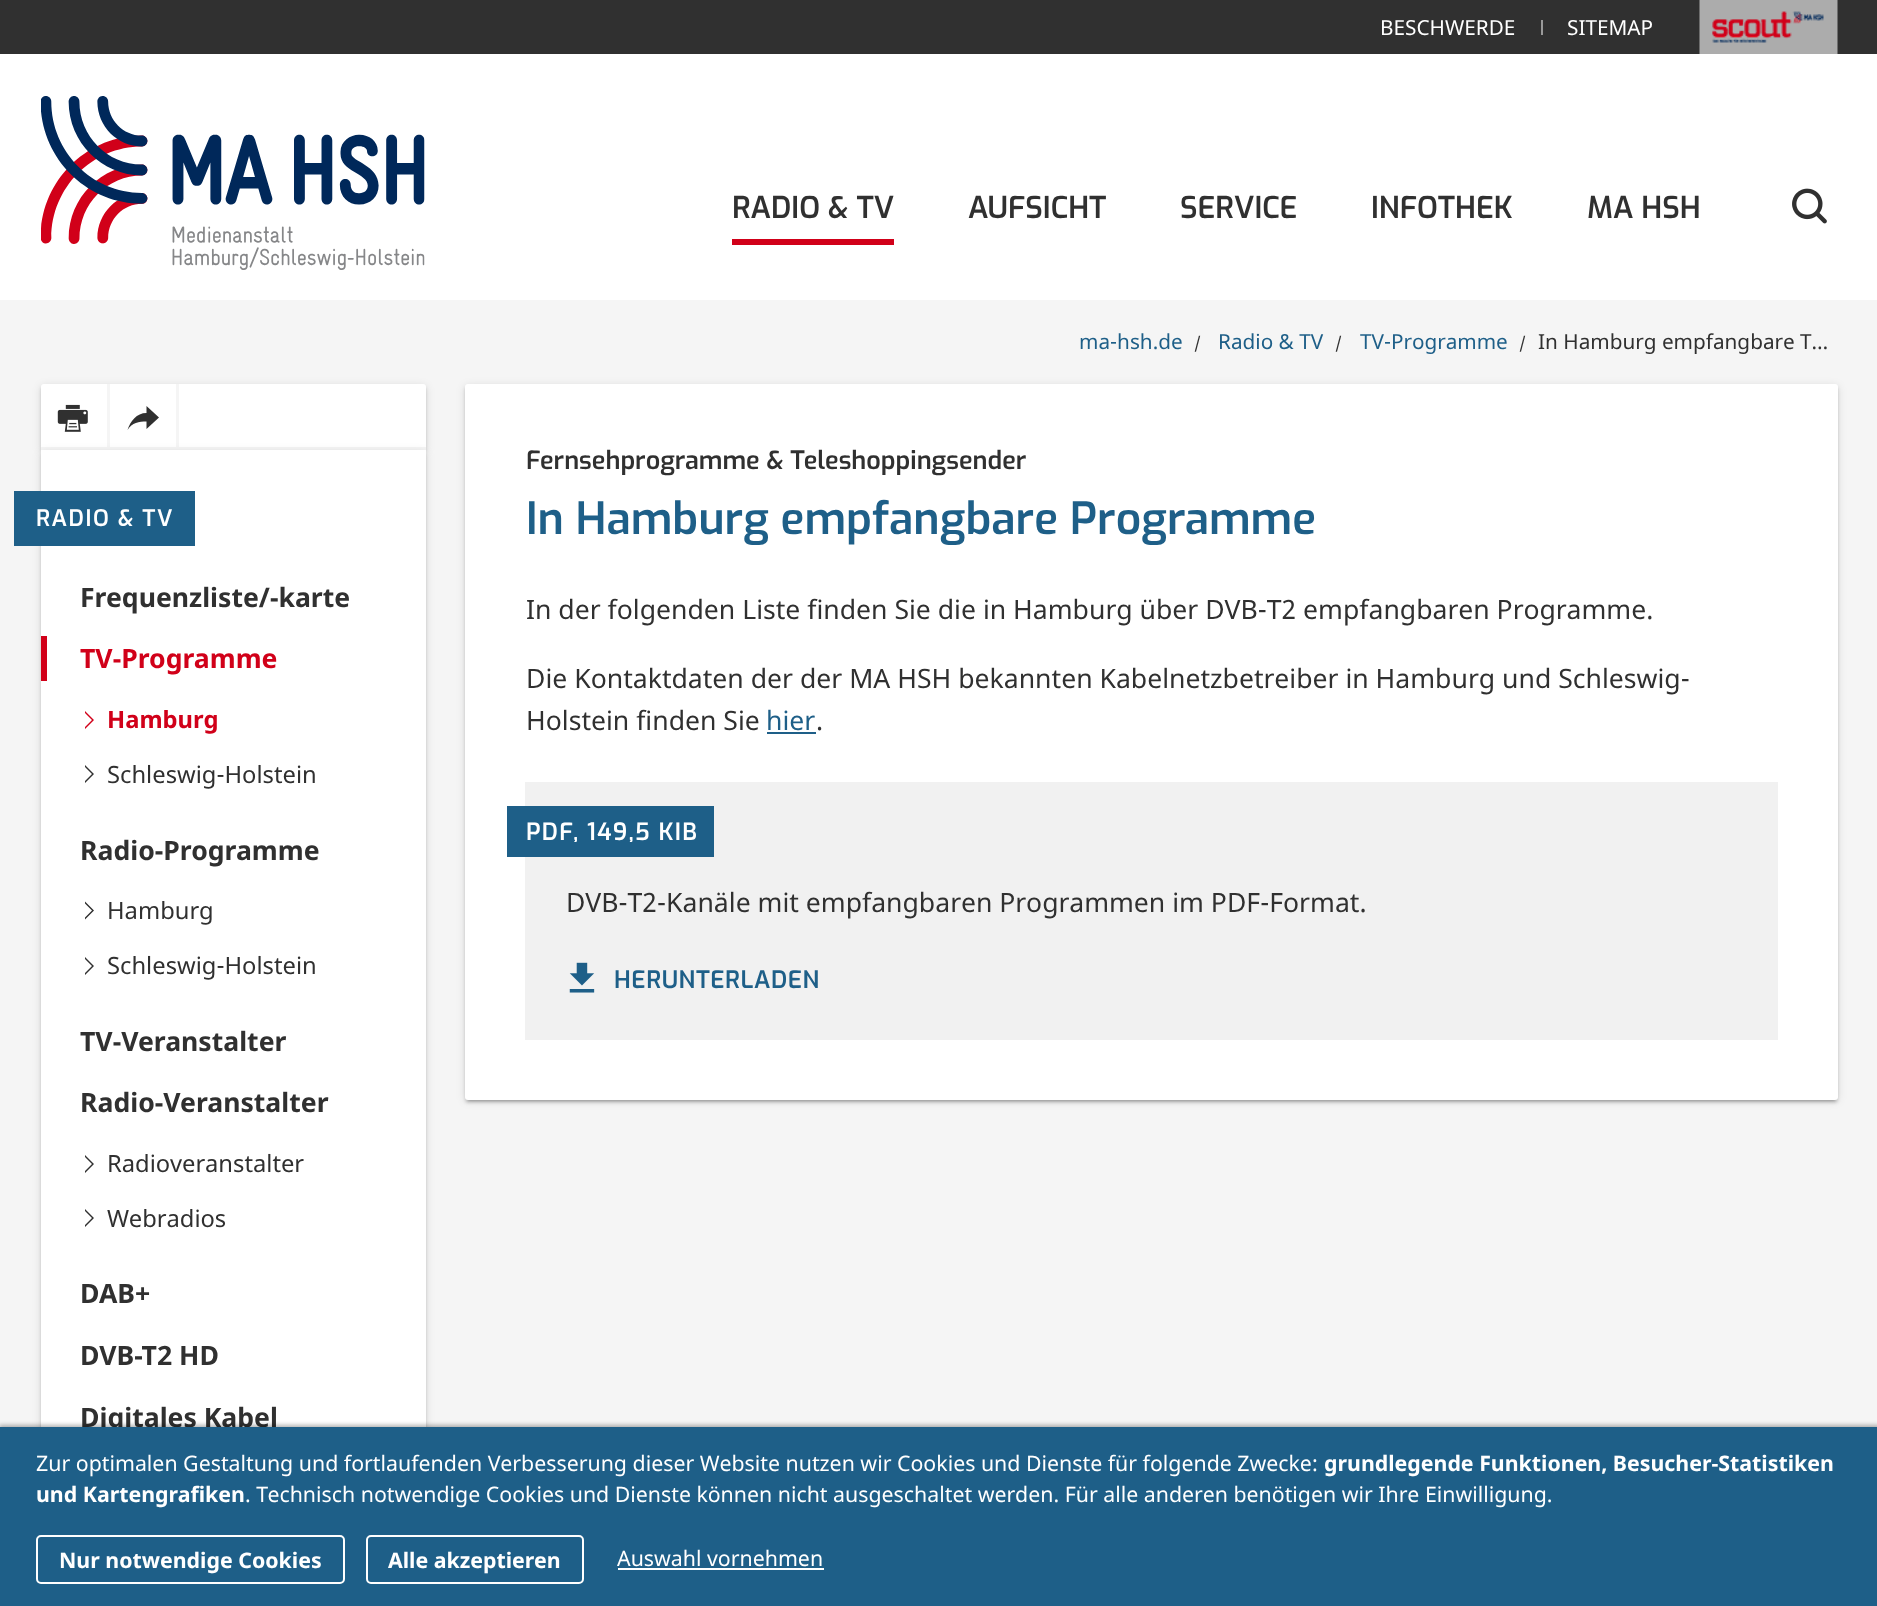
async function draw(canvas) {
  canvas.width = 1877
  canvas.height = 1606
  const ctx = canvas.getContext('2d')
  ctx.miterLimit = 4
  ctx.fontKerning = 'normal'
  async function loadImage(src) {
    const img = new Image()
    img.src = src
    await img.decode()
    return img
  }

  ctx.fillStyle = '#f5f5f5'
  ctx.fillRect(0, 0, 1877, 1606)
  ctx.fillStyle = '#fff'
  ctx.fillRect(0, 54, 1877, 246)
  ctx.fillStyle = '#303030'
  ctx.fillRect(0, 0, 1877, 54)
  ctx.font = '20.75px Noto Sans'
  ctx.fillStyle = '#fff'
  ctx.fillText('BESCHWERDE', 1380, 35)
  ctx.fillStyle = '#999'
  ctx.fillRect(1541, 20, 2, 15)
  ctx.fillStyle = '#fff'
  ctx.fillText('SITEMAP', 1567, 35)
  ctx.drawImage(await loadImage('image0.png'), 1699, 0, 139, 54)
  ctx.drawImage(await loadImage('image1.png'), 41, 96, 384, 174)
  ctx.font = '600 30px Exo'
  ctx.fillStyle = '#303030'
  ctx.fillText('RADIO & TV', 732, 218)
  ctx.fillStyle = '#d10019'
  ctx.fillRect(732, 239, 162, 6)
  ctx.fillStyle = '#303030'
  ctx.fillText('AUFSICHT', 968, 218)
  ctx.fillText('SERVICE', 1180, 218)
  ctx.fillText('INFOTHEK', 1371, 218)
  ctx.fillText('MA HSH', 1587, 218)
  ctx.drawImage(await loadImage('image2.png'), 1792, 188, 35, 36)
  ctx.font = '20.75px Noto Sans'
  ctx.fillStyle = '#1e5f88'
  ctx.fillText('ma-hsh.de', 1079, 349)
  ctx.font = '16px Noto Sans'
  ctx.fillStyle = '#303030'
  ctx.fillText('/', 1194, 349)
  ctx.font = '20.75px Noto Sans'
  ctx.fillStyle = '#1e5f88'
  ctx.fillText('Radio & TV', 1218, 349)
  ctx.font = '16px Noto Sans'
  ctx.fillStyle = '#303030'
  ctx.fillText('/', 1335, 349)
  ctx.font = '20.75px Noto Sans'
  ctx.fillStyle = '#1e5f88'
  ctx.fillText('TV-Programme', 1360, 349)
  ctx.font = '16px Noto Sans'
  ctx.fillStyle = '#303030'
  ctx.fillText('/', 1519, 349)
  ctx.font = '20.75px Noto Sans'
  ctx.fillText('In Hamburg empfangbare T…', 1538, 349)
  ctx.fillStyle = '#0000001f'
  ctx.filter = 'blur(4px)'
  ctx.beginPath()
  ctx.roundRect(41, 386, 385, 66, 3)
  ctx.fill()
  ctx.filter = 'none'
  ctx.fillStyle = '#00000024'
  ctx.filter = 'blur(1.5px)'
  ctx.beginPath()
  ctx.roundRect(41, 387, 385, 66, 3)
  ctx.fill()
  ctx.filter = 'none'
  ctx.fillStyle = '#fff'
  ctx.beginPath()
  ctx.roundRect(41, 384, 385, 66, [3, 3, 0, 0])
  ctx.fill()
  ctx.fillStyle = '#f5f5f5'
  ctx.fillRect(107, 384, 3, 66)
  ctx.drawImage(await loadImage('image3.png'), 57, 404, 31, 28)
  ctx.fillRect(176, 384, 3, 66)
  ctx.fillStyle = '#303030'
  ctx.beginPath()
  ctx.moveTo(146.5, 421.5)
  ctx.lineTo(146.5, 429)
  ctx.lineTo(159, 417.5)
  ctx.lineTo(146.5, 406)
  ctx.lineTo(146.5, 413)
  ctx.bezierCurveTo(136.5, 413, 130.5, 421, 127.5, 430)
  ctx.bezierCurveTo(132, 422.5, 139, 421.5, 146.5, 421.5)
  ctx.closePath()
  ctx.fill()
  ctx.fillStyle = '#f5f5f5'
  ctx.fillRect(41, 447, 385, 3)
  ctx.fillStyle = '#0000001f'
  ctx.filter = 'blur(4px)'
  ctx.beginPath()
  ctx.roundRect(41, 452, 385, 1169, 3)
  ctx.fill()
  ctx.filter = 'none'
  ctx.fillStyle = '#00000024'
  ctx.filter = 'blur(1.5px)'
  ctx.beginPath()
  ctx.roundRect(41, 453, 385, 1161, 3)
  ctx.fill()
  ctx.filter = 'none'
  ctx.fillStyle = '#fff'
  ctx.fillRect(41, 450, 385, 977)
  ctx.fillStyle = '#1e5f88'
  ctx.fillRect(14, 491, 181, 55)
  ctx.letterSpacing = '1.5px'
  ctx.font = '600 22.75px Exo'
  ctx.fillStyle = '#fff'
  ctx.fillText('RADIO & TV', 36, 526)
  ctx.letterSpacing = '0px'
  ctx.font = 'bold 26.6px Noto Sans'
  ctx.fillStyle = '#303030'
  ctx.fillText('Frequenzliste/-karte', 80, 607)
  ctx.fillStyle = '#d10019'
  ctx.fillRect(41, 636, 6, 45)
  ctx.fillText('TV-Programme', 80, 668)
  ctx.beginPath()
  ctx.moveTo(85, 713)
  ctx.lineTo(92, 720)
  ctx.lineTo(85, 727)
  ctx.lineTo(85, 729)
  ctx.lineTo(94, 720)
  ctx.lineTo(85, 711)
  ctx.closePath()
  ctx.fill()
  ctx.font = 'bold 23.75px Noto Sans'
  ctx.fillText('Hamburg', 107, 728)
  ctx.fillStyle = '#303030'
  ctx.beginPath()
  ctx.moveTo(85, 767)
  ctx.lineTo(92, 774)
  ctx.lineTo(85, 781)
  ctx.lineTo(85, 783)
  ctx.lineTo(94, 774)
  ctx.lineTo(85, 765)
  ctx.closePath()
  ctx.fill()
  ctx.font = '23.75px Noto Sans'
  ctx.fillText('Schleswig-Holstein', 107, 783)
  ctx.font = 'bold 26.6px Noto Sans'
  ctx.fillText('Radio-Programme', 80, 860)
  ctx.beginPath()
  ctx.moveTo(85, 903.5)
  ctx.lineTo(92, 910.5)
  ctx.lineTo(85, 917.5)
  ctx.lineTo(85, 919.5)
  ctx.lineTo(94, 910.5)
  ctx.lineTo(85, 901.5)
  ctx.closePath()
  ctx.fill()
  ctx.font = '23.75px Noto Sans'
  ctx.fillText('Hamburg', 107, 919)
  ctx.beginPath()
  ctx.moveTo(85, 959)
  ctx.lineTo(92, 966)
  ctx.lineTo(85, 973)
  ctx.lineTo(85, 975)
  ctx.lineTo(94, 966)
  ctx.lineTo(85, 957)
  ctx.closePath()
  ctx.fill()
  ctx.fillText('Schleswig-Holstein', 107, 974)
  ctx.font = 'bold 26.6px Noto Sans'
  ctx.fillText('TV-Veranstalter', 80, 1051)
  ctx.fillText('Radio-Veranstalter', 80, 1112)
  ctx.beginPath()
  ctx.moveTo(85, 1157)
  ctx.lineTo(92, 1164)
  ctx.lineTo(85, 1171)
  ctx.lineTo(85, 1173)
  ctx.lineTo(94, 1164)
  ctx.lineTo(85, 1155)
  ctx.closePath()
  ctx.fill()
  ctx.font = '23.75px Noto Sans'
  ctx.fillText('Radioveranstalter', 107, 1172)
  ctx.beginPath()
  ctx.moveTo(85, 1211)
  ctx.lineTo(92, 1218)
  ctx.lineTo(85, 1225)
  ctx.lineTo(85, 1227)
  ctx.lineTo(94, 1218)
  ctx.lineTo(85, 1209)
  ctx.closePath()
  ctx.fill()
  ctx.fillText('Webradios', 107, 1227)
  ctx.font = 'bold 26.6px Noto Sans'
  ctx.fillText('DAB+', 80, 1303)
  ctx.fillText('DVB-T2 HD', 80, 1365)
  ctx.fillText('Digitales Kabel', 80, 1427)
  ctx.fillStyle = '#0000001f'
  ctx.filter = 'blur(4px)'
  ctx.beginPath()
  ctx.roundRect(465, 386, 1373, 715, 3)
  ctx.fill()
  ctx.filter = 'none'
  ctx.fillStyle = '#00000033'
  ctx.filter = 'blur(1px)'
  ctx.beginPath()
  ctx.rect(468, 392, 1367, 709)
  ctx.fill()
  ctx.filter = 'none'
  ctx.fillStyle = '#00000024'
  ctx.filter = 'blur(1.5px)'
  ctx.beginPath()
  ctx.roundRect(465, 387, 1373, 716, 3)
  ctx.fill()
  ctx.filter = 'none'
  ctx.fillStyle = '#fff'
  ctx.beginPath()
  ctx.roundRect(465, 384, 1373, 716, 3)
  ctx.fill()
  ctx.font = '600 25.25px Exo'
  ctx.fillStyle = '#303030'
  ctx.fillText('Fernsehprogramme & Teleshoppingsender', 526, 469)
  ctx.font = '600 44.4px Exo'
  ctx.fillStyle = '#1e5f88'
  ctx.fillText('In Hamburg empfangbare Programme', 526, 534)
  ctx.font = '26.6px Noto Sans'
  ctx.fillStyle = '#303030'
  ctx.fillText('In der folgenden Liste finden Sie die in Hamburg über DVB-T2 empfangbaren Programme.', 526, 619)
  ctx.fillText('Die Kontaktdaten der der MA HSH bekannten Kabelnetzbetreiber in Hamburg und Schleswig-', 526, 688)
  ctx.fillText('Holstein finden Sie', 526, 730)
  ctx.fillStyle = '#1e5f88'
  ctx.fillText('hier', 766, 730)
  ctx.fillRect(767, 732, 49, 2)
  ctx.fillStyle = '#303030'
  ctx.fillText('.', 816, 730)
  ctx.fillStyle = '#f1f1f1'
  ctx.fillRect(525, 782, 1253, 258)
  ctx.fillStyle = '#1e5f88'
  ctx.fillRect(507, 806, 207, 51)
  ctx.letterSpacing = '1.25px'
  ctx.font = '600 23.75px Exo'
  ctx.fillStyle = '#fff'
  ctx.fillText('PDF, 149,5 KIB', 526, 840)
  ctx.letterSpacing = '0px'
  ctx.font = '26.6px Noto Sans'
  ctx.fillStyle = '#303030'
  ctx.fillText('DVB-T2-Kanäle mit empfangbaren Programmen im PDF-Format.', 566, 912)
  ctx.drawImage(await loadImage('image4.png'), 569, 962, 26, 31)
  ctx.letterSpacing = '0.6px'
  ctx.font = '600 24px Exo'
  ctx.fillStyle = '#1e5f88'
  ctx.fillText('HERUNTERLADEN', 614, 988)
  ctx.fillStyle = '#0000004d'
  ctx.filter = 'blur(2px)'
  ctx.beginPath()
  ctx.rect(-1, 1425, 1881, 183)
  ctx.fill()
  ctx.filter = 'none'
  ctx.fillStyle = '#1e5f88'
  ctx.fillRect(0, 1427, 1877, 179)
  ctx.letterSpacing = '0px'
  ctx.font = '21.33px Noto Sans'
  ctx.fillStyle = '#fff'
  ctx.fillText('Zur optimalen Gestaltung und fortlaufenden Verbesserung dieser Website nutzen wir Cookies und Dienste für folgende Zwecke:', 36, 1471)
  ctx.font = 'bold 21.33px Noto Sans'
  ctx.fillText('grundlegende Funktionen, Besucher-Statistiken', 1324, 1471)
  ctx.fillText('und Kartengrafiken', 36, 1502)
  ctx.font = '21.33px Noto Sans'
  ctx.fillText('. Technisch notwendige Cookies und Dienste können nicht ausgeschaltet werden. Für alle anderen benötigen wir Ihre Einwilligung.', 245, 1502)
  ctx.beginPath()
  ctx.roundRect(37, 1536, 307, 47, 4)
  ctx.strokeStyle = '#fff'
  ctx.lineWidth = 2
  ctx.stroke()
  ctx.font = 'bold 21.33px Noto Sans'
  ctx.fillText('Nur notwendige Cookies', 59, 1568)
  ctx.beginPath()
  ctx.roundRect(367, 1536, 216, 47, 4)
  ctx.stroke()
  ctx.fillText('Alle akzeptieren', 388, 1568)
  ctx.font = '21.33px Noto Sans'
  ctx.fillText('Auswahl vornehmen', 617, 1566)
  ctx.fillRect(618, 1568, 206, 2)
}

draw(document.querySelector('canvas'))
